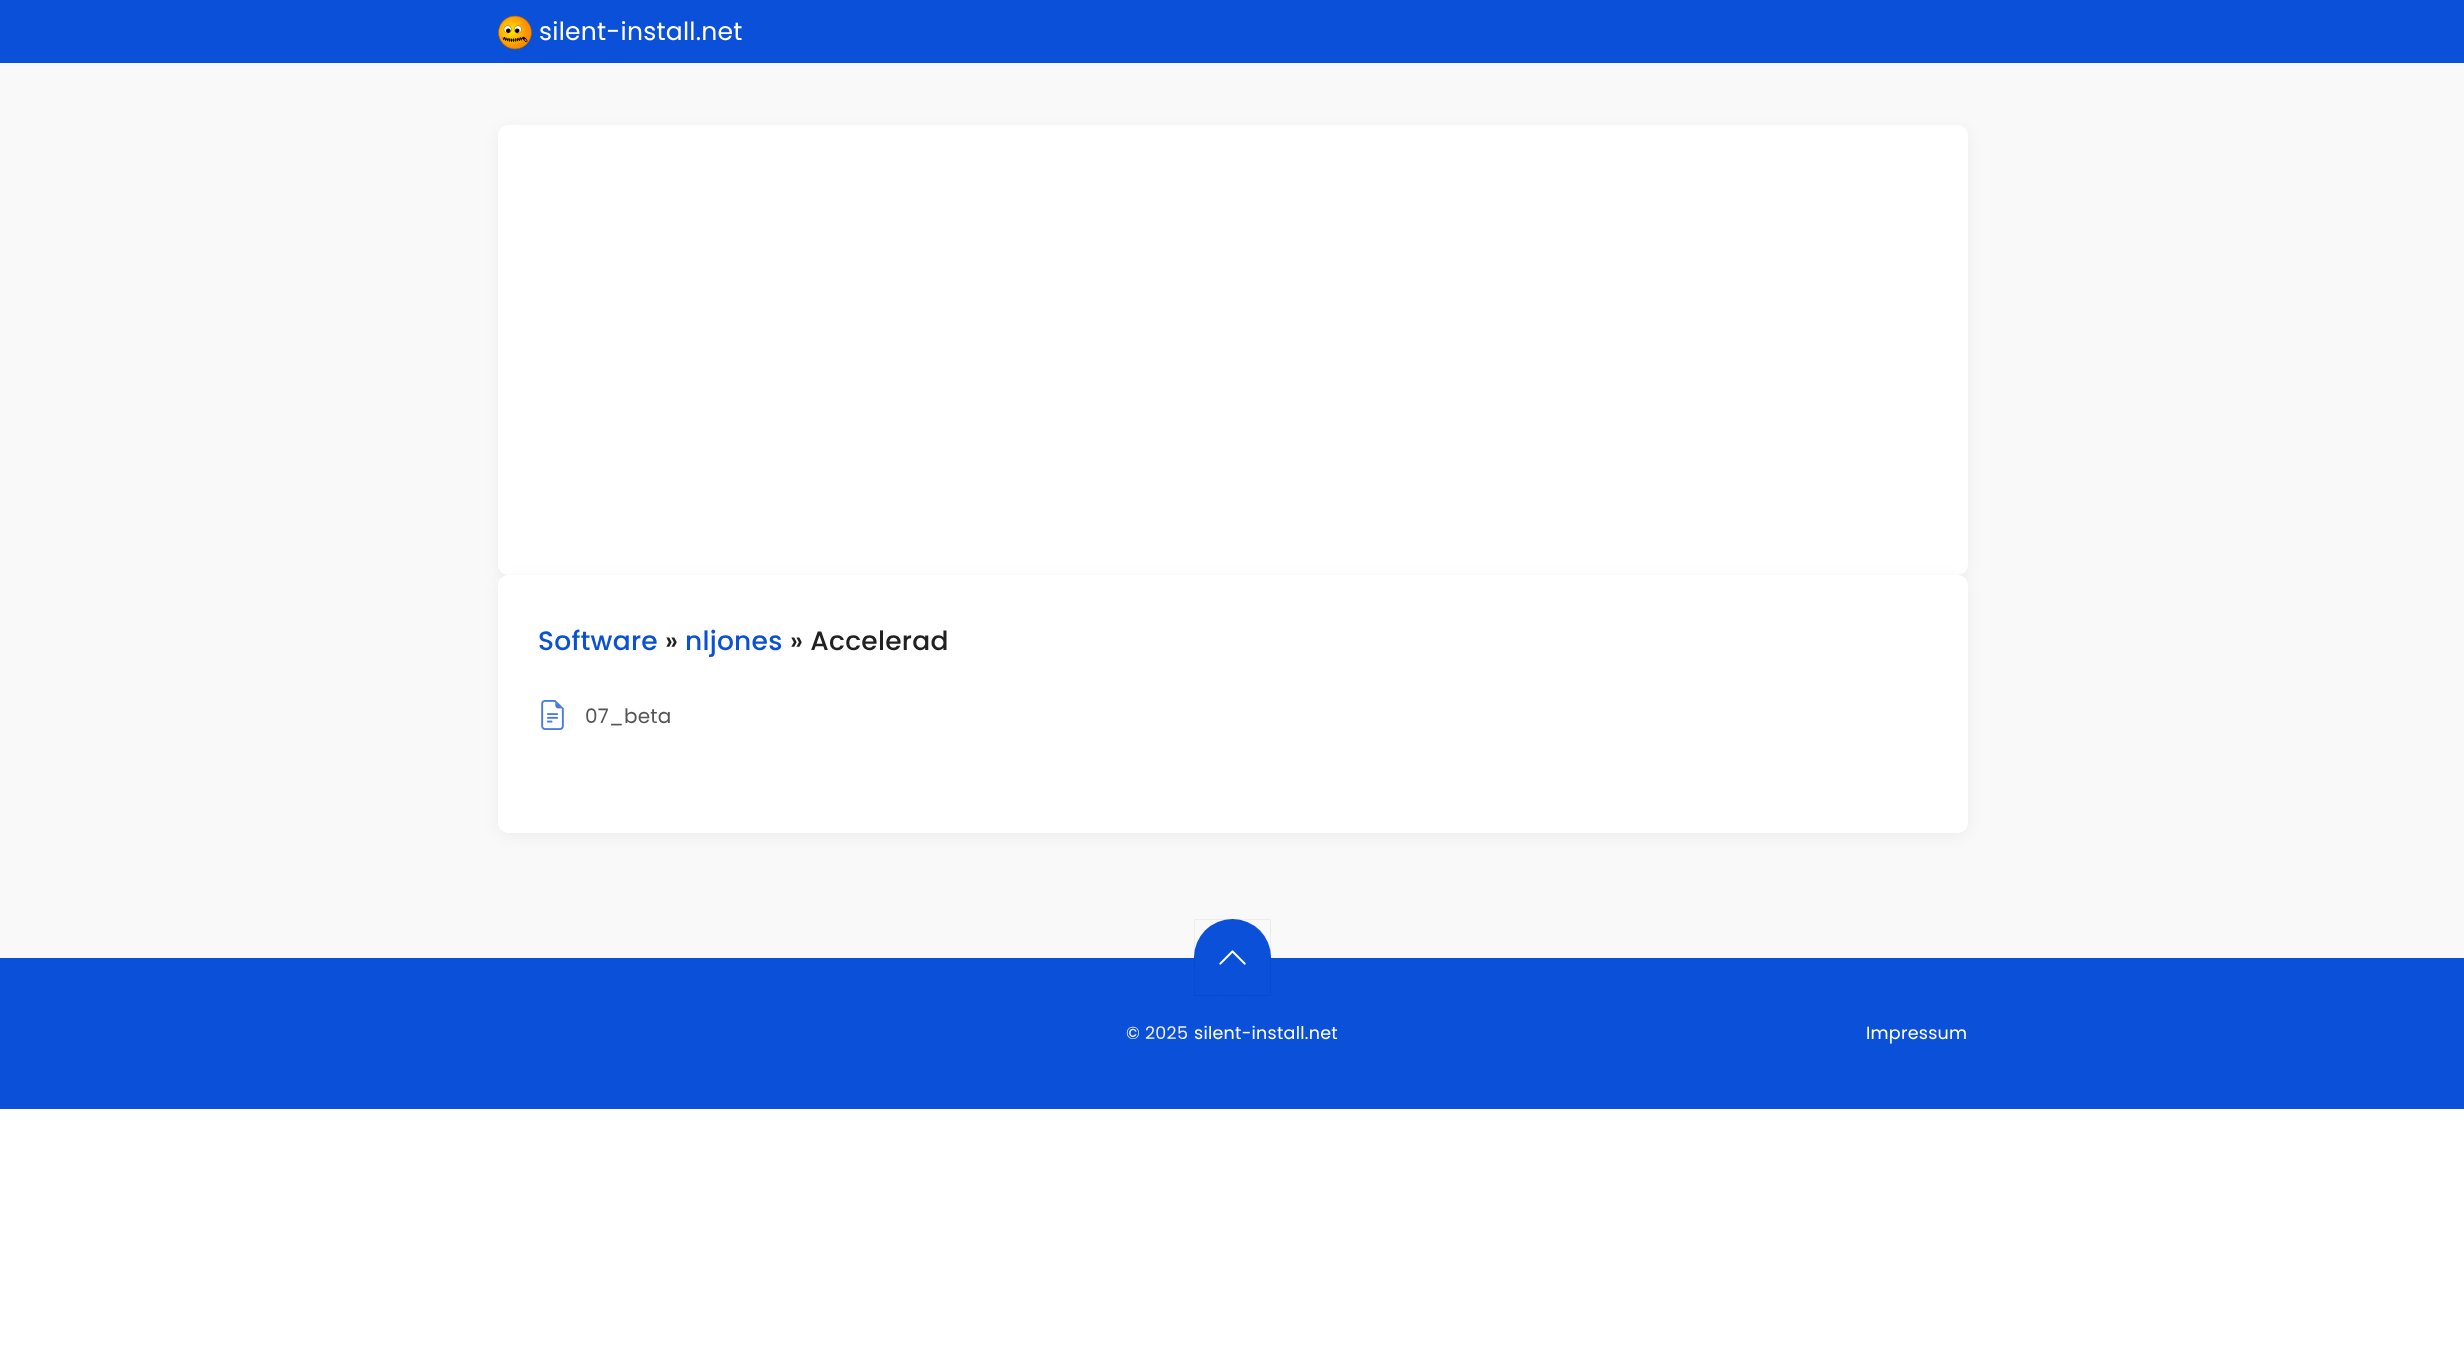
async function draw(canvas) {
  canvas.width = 2464
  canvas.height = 1365
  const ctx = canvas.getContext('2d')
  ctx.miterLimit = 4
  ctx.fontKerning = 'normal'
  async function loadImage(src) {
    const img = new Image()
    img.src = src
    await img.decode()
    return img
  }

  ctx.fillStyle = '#fff'
  ctx.fillRect(0, 0, 2464, 1365)
  ctx.fillStyle = '#f9f9fa'
  ctx.fillRect(0, 63, 2464, 895)
  ctx.fillStyle = '#0b50d8'
  ctx.fillRect(0, 0, 2464, 63)
  ctx.drawImage(await loadImage('image0.png'), 498, 15, 34, 35)
  ctx.letterSpacing = '0.25px'
  ctx.font = '25px Poppins'
  ctx.fillStyle = '#fff'
  ctx.fillText('silent-install.net', 539, 40)
  ctx.fillStyle = '#0000000d'
  ctx.filter = 'blur(7.5px)'
  ctx.beginPath()
  ctx.roundRect(498, 129, 1470, 450, 10)
  ctx.fill()
  ctx.filter = 'none'
  ctx.fillStyle = '#fff'
  ctx.beginPath()
  ctx.roundRect(498, 125, 1470, 450, 10)
  ctx.fill()
  ctx.fillStyle = '#0000000d'
  ctx.filter = 'blur(7.5px)'
  ctx.beginPath()
  ctx.roundRect(498, 579, 1470, 257, 10)
  ctx.fill()
  ctx.filter = 'none'
  ctx.fillStyle = '#fff'
  ctx.beginPath()
  ctx.roundRect(498, 575, 1470, 258, 10)
  ctx.fill()
  ctx.font = '500 26.5px Poppins'
  ctx.fillStyle = '#0b50d8'
  ctx.fillText('Software', 538, 650)
  ctx.fillStyle = '#212121'
  ctx.fillText('»', 665, 650)
  ctx.fillStyle = '#0b50d8'
  ctx.fillText('nljones', 685, 650)
  ctx.fillStyle = '#212121'
  ctx.fillText('» Accelerad', 790, 650)
  ctx.drawImage(await loadImage('image1.png'), 541, 700, 23, 30)
  ctx.font = '20px Poppins'
  ctx.fillStyle = '#555'
  ctx.fillText('07_beta', 585, 723)
  ctx.fillStyle = '#0b50d8'
  ctx.fillRect(0, 958, 2464, 151)
  ctx.beginPath()
  ctx.arc(1232.5, 957.5, 38.5, 0, 2 * Math.PI)
  ctx.fill()
  ctx.strokeStyle = '#0000000d'
  ctx.strokeRect(1194.5, 919.5, 76, 76)
  ctx.drawImage(await loadImage('image2.png'), 1219, 950, 27, 15)
  ctx.font = '17.5px Poppins'
  ctx.fillStyle = '#f1f2f3'
  ctx.fillText('© 2025', 1126, 1039)
  ctx.fillStyle = '#fff'
  ctx.fillText('silent-install.net', 1194, 1039)
  ctx.fillText('Impressum', 1866, 1039)
}

draw(document.querySelector('canvas'))
